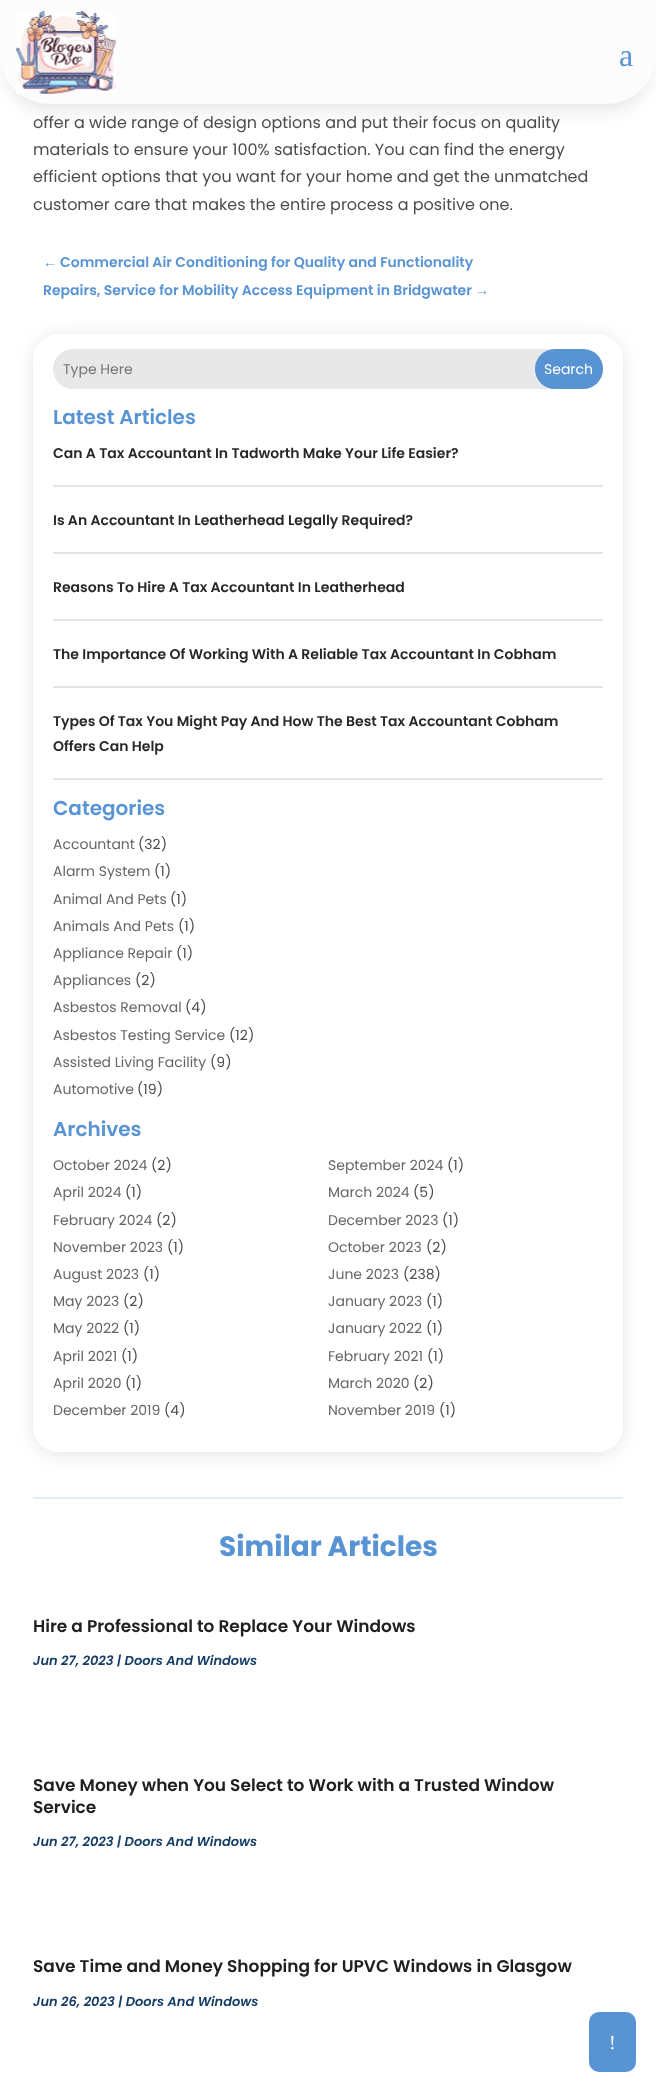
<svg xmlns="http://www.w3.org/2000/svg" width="656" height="2092">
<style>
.a{font:32px Liberation Serif;fill:#5893d4}
.b{font:16px Poppins;fill:#4c4c4c}
.c{font:bold 14px Liberation Sans;fill:#5893d4}
.d{font:600 14px Poppins;fill:#5893d4}
.e{font:14px Poppins;fill:#757575}
.f{font:14px Poppins;fill:#fff}
.g{font:600 20px Poppins;fill:#5893d4}
.h{font:600 14px Poppins;fill:#282828}
.i{font:14px Poppins;fill:#666}
.j{font:14px Poppins;fill:#4c4c4c}
.k{font:bold 28px Poppins;fill:#5893d4}
.l{font:600 17px Poppins;fill:#202020}
.m{font:italic 600 13px Poppins;fill:#153d66}
.n{font:20px Liberation Serif;fill:#fff}
</style>
<rect width="100%" height="100%" fill="#fff"/>
<rect fill="#0000001a" filter="blur(9px)" x="6" y="18" width="644" height="92" rx="44"/>
<path fill="#fcfcfc" d="M0 0h656v54c0 27.5-22.5 50-50 50h-556c-27.5 0-50-22.5-50-50z"/>
<image href="1.png" x="16" y="11" width="100" height="83"/>
<rect fill="#0000001a" filter="blur(9px)" x="33" y="336" width="590" height="1118" rx="25"/>
<rect fill="#fff" x="33" y="334" width="590" height="1118" rx="25"/>
<rect fill="#e8e8e8" x="53" y="349" width="550" height="40" rx="20"/>
<rect fill="#5893d4" x="535" y="349" width="68" height="40" rx="20"/>
<path fill="#e5e5e5" d="M53 485h550v2H53z"/>
<path fill="#e5e5e5" d="M53 552h550v2H53z"/>
<path fill="#e5e5e5" d="M53 619h550v2H53z"/>
<path fill="#e5e5e5" d="M53 686h550v2H53z"/>
<path fill="#e5e5e5" d="M53 778h550v2H53z"/>
<path fill="#e5ebff" d="M33 1497h590v2H33z"/>
<rect fill="#5893d4" x="589" y="2012" width="47" height="60" rx="10"/>
<text class="a" x="619" y="66">a</text>
<text class="b" x="33" y="128">offer a wide range of design options and put their focus on quality</text>
<text class="b" x="33" y="155">materials to ensure your 100% satisfaction. You can find the energy</text>
<text class="b" x="33" y="182">efficient options that you want for your home and get the unmatched</text>
<text class="b" x="33" y="210">customer care that makes the entire process a positive one.</text>
<text class="c" x="43" y="267">←</text>
<text class="d" x="60" y="267">Commercial Air Conditioning for Quality and Functionality</text>
<text class="d" x="43" y="295">Repairs, Service for Mobility Access Equipment in Bridgwater</text>
<text class="c" x="475" y="295">→</text>
<text class="e" x="63" y="374">Type Here</text>
<text class="f" x="544" y="374">Search</text>
<text class="g" x="53" y="424">Latest Articles</text>
<text class="h" x="53" y="458">Can A Tax Accountant In Tadworth Make Your Life Easier?</text>
<text class="h" x="53" y="525">Is An Accountant In Leatherhead Legally Required?</text>
<text class="h" x="53" y="592">Reasons To Hire A Tax Accountant In Leatherhead</text>
<text class="h" x="53" y="659">The Importance Of Working With A Reliable Tax Accountant In Cobham</text>
<text class="h" x="53" y="726">Types Of Tax You Might Pay And How The Best Tax Accountant Cobham</text>
<text class="h" x="53" y="751">Offers Can Help</text>
<text class="g" x="53" y="815">Categories</text>
<text class="i" x="53" y="849">Accountant</text>
<text class="j" x="138" y="849">(32)</text>
<text class="i" x="53" y="876">Alarm System</text>
<text class="j" x="154" y="876">(1)</text>
<text class="i" x="53" y="904">Animal And Pets</text>
<text class="j" x="170" y="904">(1)</text>
<text class="i" x="53" y="931">Animals And Pets</text>
<text class="j" x="178" y="931">(1)</text>
<text class="i" x="53" y="958">Appliance Repair</text>
<text class="j" x="176" y="958">(1)</text>
<text class="i" x="53" y="985">Appliances</text>
<text class="j" x="135" y="985">(2)</text>
<text class="i" x="53" y="1012">Asbestos Removal</text>
<text class="j" x="185" y="1012">(4)</text>
<text class="i" x="53" y="1040">Asbestos Testing Service</text>
<text class="j" x="229" y="1040">(12)</text>
<text class="i" x="53" y="1067">Assisted Living Facility</text>
<text class="j" x="210" y="1067">(9)</text>
<text class="i" x="53" y="1094">Automotive</text>
<text class="j" x="137" y="1094">(19)</text>
<text class="g" x="53" y="1136">Archives</text>
<text class="i" x="53" y="1170">October 2024</text>
<text class="j" x="151" y="1170">(2)</text>
<text class="i" x="328" y="1170">September 2024</text>
<text class="j" x="447" y="1170">(1)</text>
<text class="i" x="53" y="1197">April 2024</text>
<text class="j" x="125" y="1197">(1)</text>
<text class="i" x="328" y="1197">March 2024</text>
<text class="j" x="413" y="1197">(5)</text>
<text class="i" x="53" y="1225">February 2024</text>
<text class="j" x="156" y="1225">(2)</text>
<text class="i" x="328" y="1225">December 2023</text>
<text class="j" x="442" y="1225">(1)</text>
<text class="i" x="53" y="1252">November 2023</text>
<text class="j" x="167" y="1252">(1)</text>
<text class="i" x="328" y="1252">October 2023</text>
<text class="j" x="426" y="1252">(2)</text>
<text class="i" x="53" y="1279">August 2023</text>
<text class="j" x="143" y="1279">(1)</text>
<text class="i" x="328" y="1279">June 2023</text>
<text class="j" x="403" y="1279">(238)</text>
<text class="i" x="53" y="1306">May 2023</text>
<text class="j" x="123" y="1306">(2)</text>
<text class="i" x="328" y="1306">January 2023</text>
<text class="j" x="426" y="1306">(1)</text>
<text class="i" x="53" y="1333">May 2022</text>
<text class="j" x="123" y="1333">(1)</text>
<text class="i" x="328" y="1333">January 2022</text>
<text class="j" x="426" y="1333">(1)</text>
<text class="i" x="53" y="1361">April 2021</text>
<text class="j" x="121" y="1361">(1)</text>
<text class="i" x="328" y="1361">February 2021</text>
<text class="j" x="427" y="1361">(1)</text>
<text class="i" x="53" y="1388">April 2020</text>
<text class="j" x="125" y="1388">(1)</text>
<text class="i" x="328" y="1388">March 2020</text>
<text class="j" x="413" y="1388">(2)</text>
<text class="i" x="53" y="1415">December 2019</text>
<text class="j" x="164" y="1415">(4)</text>
<text class="i" x="328" y="1415">November 2019</text>
<text class="j" x="439" y="1415">(1)</text>
<text class="k" x="219" y="1556">Similar Articles</text>
<text class="l" x="33" y="1632">Hire a Professional to Replace Your Windows</text>
<text class="m" x="33" y="1665">Jun 27, 2023 | Doors And Windows</text>
<text class="l" x="33" y="1791">Save Money when You Select to Work with a Trusted Window</text>
<text class="l" x="33" y="1813">Service</text>
<text class="m" x="33" y="1846">Jun 27, 2023 | Doors And Windows</text>
<text class="l" x="33" y="1972">Save Time and Money Shopping for UPVC Windows in Glasgow</text>
<text class="m" x="33" y="2006">Jun 26, 2023 | Doors And Windows</text>
<text class="n" x="609" y="2049">!</text>
</svg>
